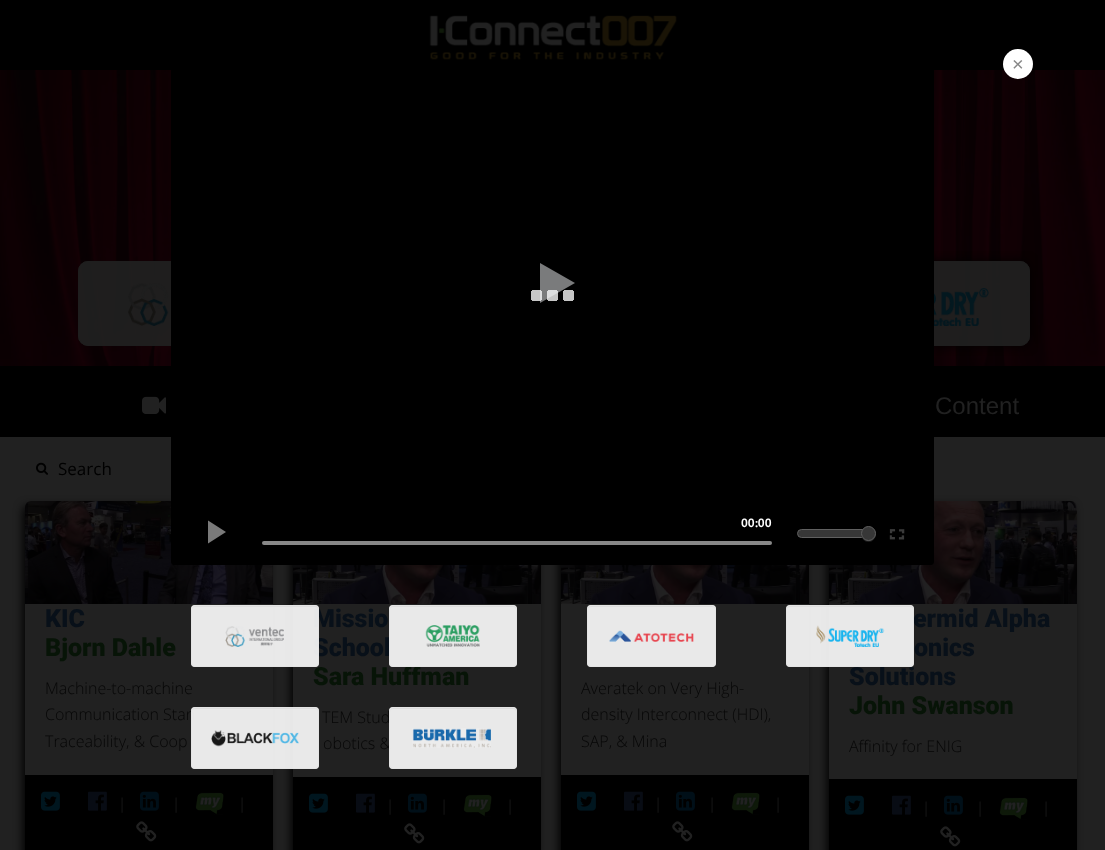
<svg xmlns="http://www.w3.org/2000/svg" width="1105" height="850">
<style>
.a{font:20px Liberation Sans;fill:#888}
.b{font:bold 12px PT Sans;fill:#fff}
.c{font:24px Liberation Sans;fill:#212121}
.d{font:17px Open Sans;fill:#000}
.e{font:900 25px Roboto;fill:#081019}
.f{font:900 25px Roboto;fill:#071407}
.g{font:300 16px Open Sans;fill:#070707}
.h{font:300 15px Open Sans;fill:#212121}
</style>
<defs>
<clipPath id="clip1"><path d="M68 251h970v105H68z"/></clipPath>
<clipPath id="clip2"><path d="M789 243h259v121h-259zm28 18h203c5.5 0 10 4.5 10 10v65c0 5.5-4.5 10-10 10h-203c-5.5 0-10-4.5-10-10v-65c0-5.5 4.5-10 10-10z" clip-rule="evenodd"/></clipPath>
<clipPath id="clip3"><path d="M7 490h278v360h-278zm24 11h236c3.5 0 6 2.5 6 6v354c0 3.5-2.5 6-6 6h-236c-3.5 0-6-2.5-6-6v-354c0-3.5 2.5-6 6-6z" clip-rule="evenodd"/></clipPath>
<clipPath id="clip4"><path d="M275 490h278v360h-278zm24 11h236c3.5 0 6 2.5 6 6v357c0 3.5-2.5 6-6 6h-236c-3.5 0-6-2.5-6-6v-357c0-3.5 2.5-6 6-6z" clip-rule="evenodd"/></clipPath>
<clipPath id="clip5"><path d="M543 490h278v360h-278zm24 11h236c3.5 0 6 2.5 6 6v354c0 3.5-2.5 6-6 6h-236c-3.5 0-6-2.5-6-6v-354c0-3.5 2.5-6 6-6z" clip-rule="evenodd"/></clipPath>
<clipPath id="clip6"><path d="M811 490h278v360h-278zm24 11h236c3.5 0 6 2.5 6 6v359c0 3.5-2.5 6-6 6h-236c-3.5 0-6-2.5-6-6v-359c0-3.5 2.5-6 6-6z" clip-rule="evenodd"/></clipPath>
</defs>
<rect width="100%" height="100%" fill="#212121"/>
<path fill="#000" d="M0 0h1105v70H0z"/>
<image href="10.png" x="0" y="70" width="1105" height="296"/>
<circle fill="#fff" cx="1018" cy="64" r="15"/>
<rect fill="#212121e6" x="78" y="261" width="223" height="85" rx="10"/>
<rect fill="none" stroke="#1e1e1ee6" x="78.5" y="261.5" width="222" height="84" rx="9.5"/>
<g clip-path="url(#clip1)">
<g clip-path="url(#clip2)">
<rect fill="#000000e6" filter="blur(5.5px)" x="807" y="261" width="223" height="85" rx="10"/>
</g>
</g>
<rect fill="#212121e6" x="807" y="261" width="223" height="85" rx="10"/>
<rect fill="none" stroke="#1e1e1ee6" x="807.5" y="261.5" width="222" height="84" rx="9.5"/>
<path fill="#000" d="M0 366h1105v71H0z"/>
<g clip-path="url(#clip3)">
<rect fill="#000" filter="blur(5px)" x="23" y="506" width="246" height="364" rx="5"/>
</g>
<g clip-path="url(#clip4)">
<rect fill="#000" filter="blur(5px)" x="291" y="506" width="246" height="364" rx="5"/>
</g>
<g clip-path="url(#clip5)">
<rect fill="#000" filter="blur(5px)" x="559" y="506" width="246" height="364" rx="5"/>
</g>
<g clip-path="url(#clip6)">
<rect fill="#000" filter="blur(5px)" x="827" y="506" width="246" height="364" rx="5"/>
</g>
<path fill="#000" d="M174 68h757c1.5 0 3 1.5 3 3v426h-763v-426c0-1.5 1.5-3 3-3z"/>
<image href="1.png" x="531" y="290" width="43" height="11"/>
<path fill="#f3f5f780" d="M540 303v-40l35 20z"/>
<image href="15.png" x="25" y="501" width="248" height="103"/>
<image href="22.png" x="829" y="501" width="248" height="103"/>
<path fill="#000" d="M171 497h763v65c0 1.5-1.5 3-3 3h-757c-1.5 0-3-1.5-3-3z"/>
<path fill="#7a7a7a" d="M208 520.5v23l18-11.5z"/>
<rect fill="#888" x="262" y="541" width="510" height="4" rx="2"/>
<rect fill="#373737" stroke="#606060" x="797.5" y="529.5" width="71" height="8" rx="4"/>
<rect fill="#1e1e1e" filter="blur(0.5px)" x="861" y="527" width="15" height="15" rx="7.5"/>
<circle fill="#373737" stroke="#606060" cx="868.5" cy="533.5" r="7"/>
<image href="2.png" x="889" y="529" width="16" height="11"/>
<rect fill="#ffffffe6" x="587" y="605" width="129" height="62" rx="4"/>
<path fill="#ddd" d="M591 607h121c2 0 3 1 3 3v-1c0-2-1-3-3-3h-121c-2 0-3 1-3 3v1c0-2 1-3 3-3z"/>
<rect fill="none" stroke="#e3e3e3e6" x="587.5" y="605.5" width="128" height="61" rx="3.5"/>
<image href="5.png" x="609" y="630" width="85" height="12"/>
<image href="9.png" x="429" y="15" width="248" height="45"/>
<image href="11.png" x="128" y="283" width="41" height="43"/>
<image href="12.png" x="934" y="288" width="55" height="38"/>
<image href="13.png" x="142" y="396" width="24" height="18"/>
<image href="14.png" x="36" y="462" width="12" height="13"/>
<path fill="#000" d="M25 775h248v75H25z"/>
<image href="16.png" x="41" y="791" width="19" height="20"/>
<image href="17.png" x="88" y="791" width="19" height="20"/>
<image href="18.png" x="140" y="791" width="19" height="20"/>
<image href="19.png" x="195" y="792" width="29" height="23"/>
<image href="20.png" x="136" y="821" width="21" height="21"/>
<image href="21.png" x="293" y="565" width="248" height="39"/>
<path fill="#000" d="M293 777h248v73H293z"/>
<image href="16.png" x="309" y="793" width="19" height="20"/>
<image href="17.png" x="356" y="793" width="19" height="20"/>
<image href="18.png" x="408" y="793" width="19" height="20"/>
<image href="19.png" x="463" y="794" width="29" height="23"/>
<image href="20.png" x="404" y="823" width="21" height="21"/>
<image href="21.png" x="561" y="565" width="248" height="39"/>
<path fill="#000" d="M561 775h248v75H561z"/>
<image href="16.png" x="577" y="791" width="19" height="20"/>
<image href="17.png" x="624" y="791" width="19" height="20"/>
<image href="18.png" x="676" y="791" width="19" height="20"/>
<image href="19.png" x="731" y="792" width="29" height="23"/>
<image href="20.png" x="672" y="821" width="21" height="21"/>
<path fill="#000" d="M829 779h248v71H829z"/>
<image href="16.png" x="845" y="795" width="19" height="20"/>
<image href="17.png" x="892" y="795" width="19" height="20"/>
<image href="18.png" x="944" y="795" width="19" height="20"/>
<image href="19.png" x="999" y="797" width="29" height="23"/>
<image href="20.png" x="940" y="826" width="21" height="21"/>
<text class="a" x="1012" y="71">×</text>
<text class="b" x="741" y="527">00:00</text>
<text class="c" x="935" y="414">Content</text>
<text class="d" x="58" y="475">Search</text>
<text class="e" x="45" y="627">KIC</text>
<text class="f" x="45" y="656">Bjorn Dahle</text>
<text class="g" x="45" y="694">Machine-to-machine</text>
<text class="g" x="45" y="720">Communication Stan</text>
<rect fill="#ffffffe6" x="191" y="707" width="128" height="62" rx="4"/>
<path fill="#dedede" d="M195 709h120c2 0 3 1 3 3c0-2 0-4-2-4h-121c-2 0-3 2-3 4c0-2 1-3 3-3z"/>
<rect fill="none" stroke="#e3e3e3e6" x="191.5" y="707.5" width="127" height="61" rx="3.5"/>
<image href="7.png" x="211" y="730" width="88" height="17"/>
<text class="g" x="45" y="747">Traceability, &amp; Coop</text>
<text class="h" x="118" y="809">|</text>
<text class="h" x="172" y="809">|</text>
<text class="h" x="238" y="809">|</text>
<text class="e" x="313" y="627">Missio</text>
<text class="e" x="313" y="656">School</text>
<text class="f" x="313" y="685">Sara Huffman</text>
<rect fill="#ffffffe6" x="389" y="605" width="128" height="62" rx="4"/>
<path fill="#ddd" d="M393 607h120c2 0 3 1 3 3c0-2 0-4-2-4h-121c-2 0-3 2-3 4c0-2 1-3 3-3z"/>
<rect fill="none" stroke="#e3e3e3e6" x="389.5" y="605.5" width="127" height="61" rx="3.5"/>
<image href="4.png" x="425" y="625" width="55" height="22"/>
<rect fill="#ffffffe6" x="191" y="605" width="128" height="62" rx="4"/>
<path fill="#dedede" d="M195 607h120c2 0 3 1 3 3c0-2 0-4-2-4h-121c-2 0-3 2-3 4c0-2 1-3 3-3z"/>
<rect fill="none" stroke="#e3e3e3e6" x="191.5" y="605.5" width="127" height="61" rx="3.5"/>
<image href="3.png" x="225" y="626" width="59" height="21"/>
<text class="g" x="322" y="723">TEM Stud</text>
<text class="g" x="323" y="749">obotics &amp;</text>
<rect fill="#ffffffe6" x="389" y="707" width="128" height="62" rx="4"/>
<path fill="#ddd" d="M393 709h120c2 0 3 1 3 3c0-2 0-4-2-4h-121c-2 0-3 2-3 4c0-2 1-3 3-3z"/>
<rect fill="none" stroke="#e3e3e3e6" x="389.5" y="707.5" width="127" height="61" rx="3.5"/>
<image href="8.png" x="412" y="728" width="79" height="20"/>
<text class="h" x="386" y="811">|</text>
<text class="h" x="440" y="811">|</text>
<text class="h" x="506" y="811">|</text>
<text class="g" x="581" y="694">Averatek on Very High-</text>
<text class="g" x="581" y="720">density Interconnect (HDI),</text>
<text class="g" x="581" y="747">SAP, &amp; Mina</text>
<text class="h" x="654" y="809">|</text>
<text class="h" x="708" y="809">|</text>
<text class="h" x="774" y="809">|</text>
<text class="e" x="913" y="627">ermid Alpha</text>
<text class="e" x="914" y="656">onics</text>
<text class="e" x="849" y="685">Solutions</text>
<rect fill="#ffffffe6" x="786" y="605" width="128" height="62" rx="4"/>
<path fill="#dedede" d="M790 607h120c2 0 3 1 3 3c0-2 0-4-2-4h-121c-2 0-3 2-3 4c0-2 1-3 3-3z"/>
<rect fill="none" stroke="#e3e3e3e6" x="786.5" y="605.5" width="127" height="61" rx="3.5"/>
<image href="6.png" x="816" y="625" width="69" height="22"/>
<text class="f" x="849" y="714">John Swanson</text>
<text class="g" x="849" y="752">Affinity for ENIG</text>
<text class="h" x="922" y="813">|</text>
<text class="h" x="976" y="813">|</text>
<text class="h" x="1042" y="813">|</text>
</svg>
